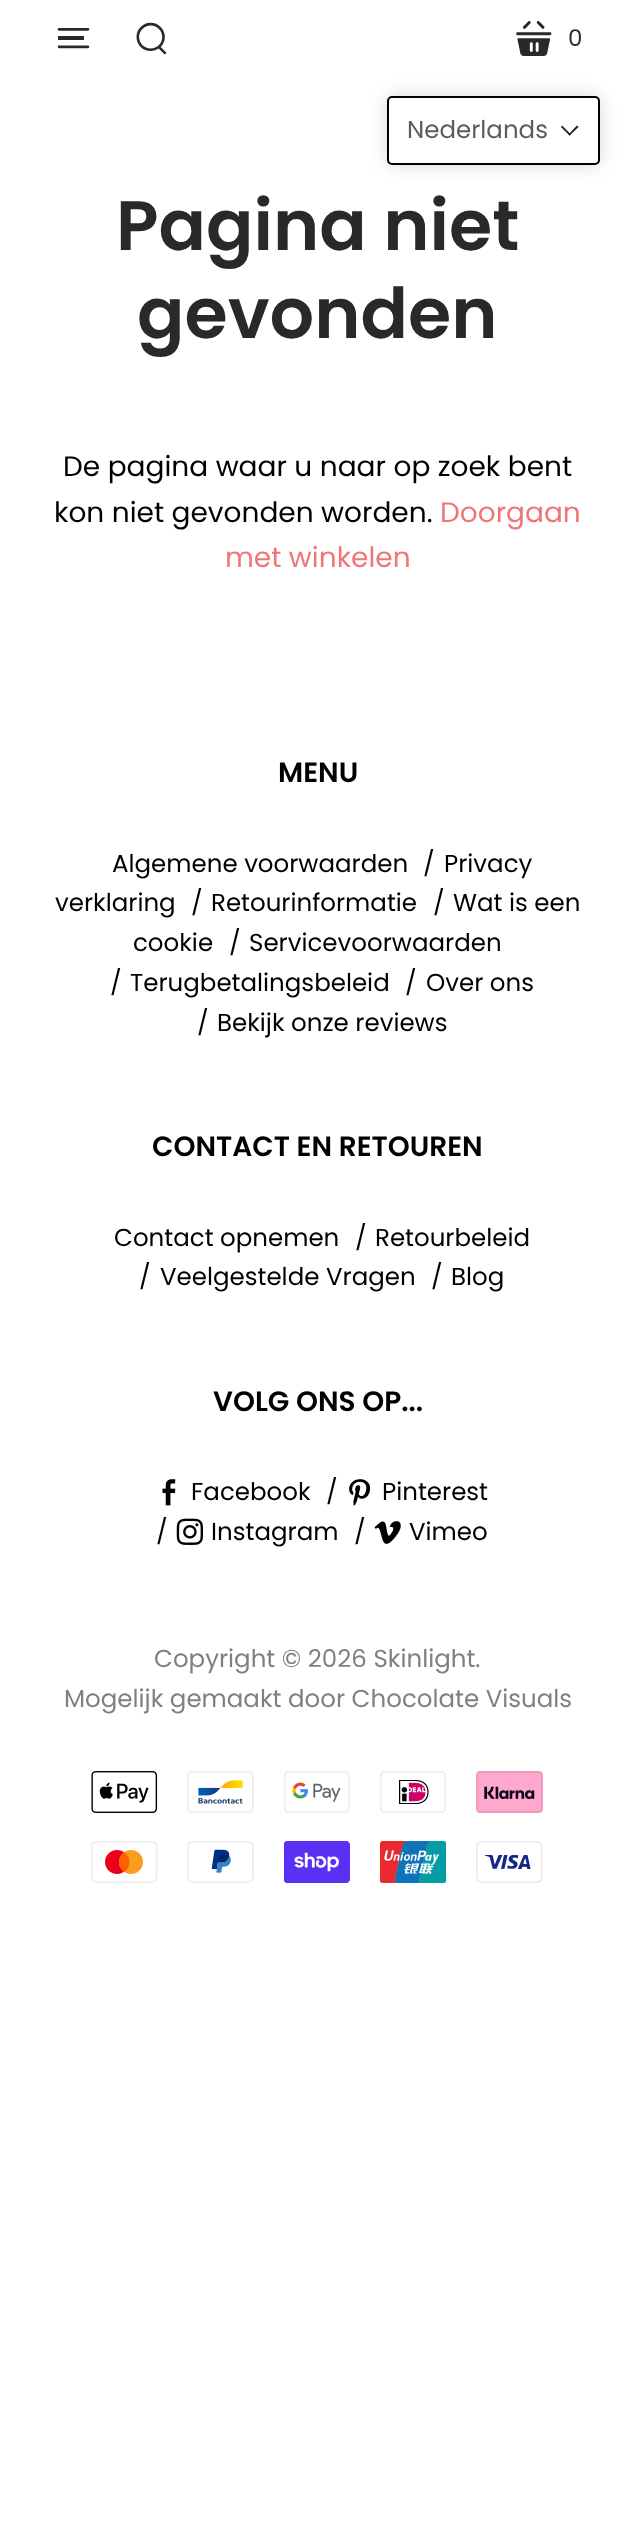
<svg xmlns="http://www.w3.org/2000/svg" width="634" height="2529">
<style>
.a{font:23px Poppins;fill:#292929}
.b{font:24.5px Poppins;fill:#5c5c5c}
.c{font:600 70px Poppins;fill:#292929}
.d{font:28px Poppins;fill:#000}
.e{font:28px Poppins;fill:#f07575}
.f{font:600 28px Poppins;fill:#000}
.g{font:24.5px Poppins;fill:#000}
.h{font:24.5px Poppins;fill:#808080}
</style>
<rect width="100%" height="100%" fill="#fff"/>
<image href="1.png" x="57" y="28" width="33" height="21"/>
<path fill="#292929" d="M58 36h26v4H58z"/>
<image href="2.png" x="136" y="22" width="31" height="33"/>
<image href="3.png" x="516" y="21" width="36" height="35"/>
<rect fill="#00000026" filter="blur(9px)" x="387" y="96" width="213" height="69" rx="5"/>
<rect fill="#fff" stroke="#000" stroke-width="2" x="388" y="97" width="211" height="67" rx="4"/>
<path fill="#1a1a1a" d="M577 125.5l1.5 1.5l-9 8.5l-1-1z"/>
<path fill="#1a1a1a" d="M562 125.5l9 9l-1.5 1l-8.5-8.5z"/>
<image href="4.png" x="162" y="1479" width="14" height="27"/>
<image href="5.png" x="349" y="1479" width="22" height="27"/>
<image href="6.png" x="176" y="1518" width="27" height="27"/>
<image href="7.png" x="374" y="1521" width="27" height="23"/>
<image href="8.png" x="91" y="1771" width="67" height="42"/>
<image href="9.png" x="187" y="1771" width="67" height="42"/>
<image href="10.png" x="284" y="1771" width="66" height="42"/>
<image href="11.png" x="380" y="1771" width="66" height="42"/>
<image href="12.png" x="476" y="1771" width="67" height="42"/>
<image href="13.png" x="91" y="1841" width="67" height="42"/>
<image href="14.png" x="187" y="1841" width="67" height="42"/>
<image href="15.png" x="284" y="1841" width="66" height="42"/>
<image href="16.png" x="380" y="1841" width="66" height="42"/>
<image href="17.png" x="476" y="1841" width="67" height="42"/>
<text class="a" x="568" y="46">0</text>
<text class="b" x="407" y="138">Nederlands</text>
<text class="c" x="116" y="250">Pagina niet</text>
<text class="c" x="137" y="338">gevonden</text>
<text class="d" x="63" y="476">De pagina waar u naar op zoek bent</text>
<text class="d" x="54" y="522">kon niet gevonden worden.</text>
<text class="e" x="440" y="522">Doorgaan</text>
<text class="e" x="225" y="567">met winkelen</text>
<text class="f" x="278" y="782">MENU</text>
<text class="g" x="112" y="872">Algemene voorwaarden</text>
<text class="g" x="423" y="872">/</text>
<text class="g" x="444" y="872">Privacy</text>
<text class="g" x="55" y="911">verklaring</text>
<text class="g" x="191" y="911">/</text>
<text class="g" x="211" y="911">Retourinformatie</text>
<text class="g" x="433" y="911">/</text>
<text class="g" x="453" y="911">Wat is een</text>
<text class="g" x="133" y="951">cookie</text>
<text class="g" x="229" y="951">/</text>
<text class="g" x="249" y="951">Servicevoorwaarden</text>
<text class="g" x="110" y="991">/</text>
<text class="g" x="130" y="991">Terugbetalingsbeleid</text>
<text class="g" x="405" y="991">/</text>
<text class="g" x="426" y="991">Over ons</text>
<text class="g" x="197" y="1031">/</text>
<text class="g" x="217" y="1031">Bekijk onze reviews</text>
<text class="f" x="152" y="1156">CONTACT EN RETOUREN</text>
<text class="g" x="114" y="1246">Contact opnemen</text>
<text class="g" x="355" y="1246">/</text>
<text class="g" x="375" y="1246">Retourbeleid</text>
<text class="g" x="139" y="1285">/</text>
<text class="g" x="160" y="1285">Veelgestelde Vragen</text>
<text class="g" x="431" y="1285">/</text>
<text class="g" x="451" y="1285">Blog</text>
<text class="f" x="213" y="1411">VOLG ONS OP...</text>
<text class="g" x="191" y="1500">Facebook</text>
<text class="g" x="326" y="1500">/</text>
<text class="g" x="382" y="1500">Pinterest</text>
<text class="g" x="156" y="1540">/</text>
<text class="g" x="211" y="1540">Instagram</text>
<text class="g" x="354" y="1540">/</text>
<text class="g" x="409" y="1540">Vimeo</text>
<text class="h" x="154" y="1667">Copyright © 2026 Skinlight.</text>
<text class="h" x="64" y="1707">Mogelijk gemaakt door Chocolate Visuals</text>
</svg>
